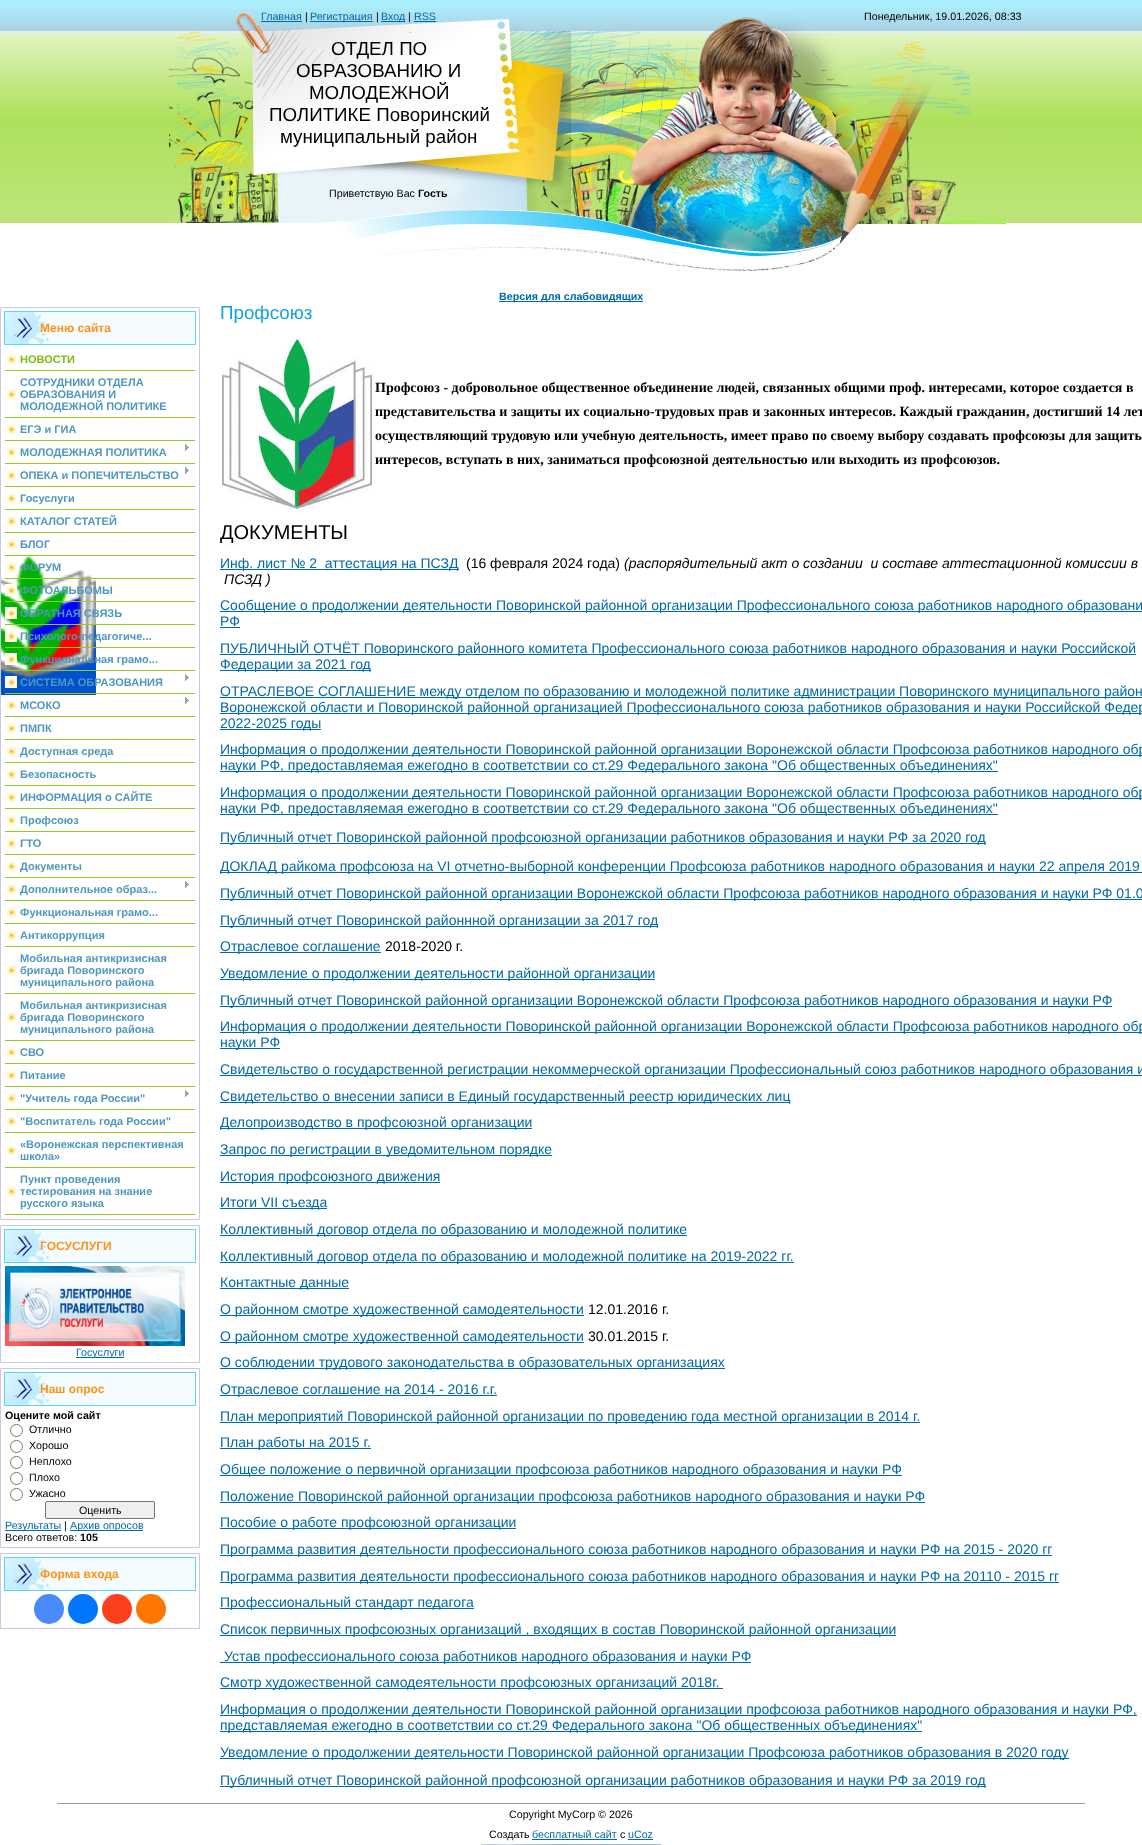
<svg xmlns="http://www.w3.org/2000/svg" width="1142" height="1845">
<style>
.a{font:10.7px Liberation Sans;fill:#0069a9}
.b{font:10.7px Liberation Sans;fill:#000}
.c{font:18.75px Liberation Sans;fill:#000}
.d{font:bold 10.7px Liberation Sans;fill:#000}
.e{font:bold 10.7px Liberation Sans;fill:#0069a9}
.f{font:bold 12px Liberation Sans;fill:#ff9115}
.g{font:bold 11px Liberation Sans;fill:#79bd11}
.h{font:bold 11px Liberation Sans;fill:#4f98bc}
.i{font:18.75px Liberation Sans;fill:#12a4d8}
.j{font:bold 14px Liberation Serif;fill:#000}
.k{font:20px Liberation Sans;fill:#000}
.l{font:14px Liberation Sans;fill:#0069a9}
.m{font:14px Liberation Sans;fill:#000}
.n{font:italic 14px Liberation Sans;fill:#000}
</style>
<rect width="100%" height="100%" fill="#fff"/>
<image href="1.png" x="0" y="0" width="1142" height="223"/>
<image href="2.png" x="168" y="8" width="838" height="263"/>
<path fill="#0069a9" d="M261 21h41v1H261z"/>
<path fill="#0069a9" d="M310 21h63v1H310z"/>
<path fill="#0069a9" d="M381 21h24v1H381z"/>
<path fill="#0069a9" d="M414 21h22v1H414z"/>
<path fill="#0069a9" d="M499 301h144v1H499z"/>
<image href="9.png" x="1" y="556" width="95" height="139"/>
<path fill="none" stroke="#cacae6" d="M0.5 307.5h199v912H0.5z"/>
<path fill="#f5fcff" d="M49 312h146v32H49z"/>
<image href="3.png" x="5" y="312" width="44" height="32"/>
<path fill="none" stroke="#5bd1fc" d="M4.5 311.5h191v33H4.5z"/>
<image href="4.png" x="5" y="353" width="11" height="12"/>
<path fill="#97c821" d="M5 370h190v1H5z"/>
<image href="4.png" x="5" y="388" width="11" height="12"/>
<path fill="#97c821" d="M5 417h190v1H5z"/>
<image href="4.png" x="5" y="423" width="11" height="12"/>
<path fill="#97c821" d="M5 440h190v1H5z"/>
<image href="4.png" x="5" y="446" width="11" height="12"/>
<path fill="#97c821" d="M5 463h190v1H5z"/>
<image href="5.png" x="185" y="444" width="4" height="7"/>
<image href="4.png" x="5" y="469" width="11" height="12"/>
<path fill="#97c821" d="M5 486h190v1H5z"/>
<image href="5.png" x="185" y="467" width="4" height="7"/>
<image href="4.png" x="5" y="492" width="11" height="12"/>
<path fill="#97c821" d="M5 509h190v1H5z"/>
<image href="4.png" x="5" y="515" width="11" height="12"/>
<path fill="#97c821" d="M5 532h190v1H5z"/>
<image href="4.png" x="5" y="538" width="11" height="12"/>
<path fill="#97c821" d="M5 555h190v1H5z"/>
<image href="4.png" x="5" y="561" width="11" height="12"/>
<path fill="#97c821" d="M5 578h190v1H5z"/>
<image href="6.png" x="5" y="584" width="12" height="12"/>
<path fill="#97c821" d="M5 601h190v1H5z"/>
<image href="6.png" x="5" y="607" width="12" height="12"/>
<path fill="#97c821" d="M5 624h190v1H5z"/>
<image href="6.png" x="5" y="630" width="12" height="12"/>
<path fill="#97c821" d="M5 647h190v1H5z"/>
<image href="6.png" x="5" y="653" width="12" height="12"/>
<path fill="#97c821" d="M5 670h190v1H5z"/>
<image href="6.png" x="5" y="676" width="12" height="12"/>
<path fill="#97c821" d="M5 693h190v1H5z"/>
<image href="5.png" x="185" y="674" width="4" height="7"/>
<image href="4.png" x="5" y="699" width="11" height="12"/>
<path fill="#97c821" d="M5 716h190v1H5z"/>
<image href="5.png" x="185" y="697" width="4" height="7"/>
<image href="4.png" x="5" y="722" width="11" height="12"/>
<path fill="#97c821" d="M5 739h190v1H5z"/>
<image href="4.png" x="5" y="745" width="11" height="12"/>
<path fill="#97c821" d="M5 762h190v1H5z"/>
<image href="4.png" x="5" y="768" width="11" height="12"/>
<path fill="#97c821" d="M5 785h190v1H5z"/>
<image href="4.png" x="5" y="791" width="11" height="12"/>
<path fill="#97c821" d="M5 808h190v1H5z"/>
<image href="4.png" x="5" y="814" width="11" height="12"/>
<path fill="#97c821" d="M5 831h190v1H5z"/>
<image href="4.png" x="5" y="837" width="11" height="12"/>
<path fill="#97c821" d="M5 854h190v1H5z"/>
<image href="4.png" x="5" y="860" width="11" height="12"/>
<path fill="#97c821" d="M5 877h190v1H5z"/>
<image href="4.png" x="5" y="883" width="11" height="12"/>
<path fill="#97c821" d="M5 900h190v1H5z"/>
<image href="5.png" x="185" y="881" width="4" height="7"/>
<image href="4.png" x="5" y="906" width="11" height="12"/>
<path fill="#97c821" d="M5 923h190v1H5z"/>
<image href="4.png" x="5" y="929" width="11" height="12"/>
<path fill="#97c821" d="M5 946h190v1H5z"/>
<image href="4.png" x="5" y="964" width="11" height="12"/>
<path fill="#97c821" d="M5 993h190v1H5z"/>
<image href="4.png" x="5" y="1011" width="11" height="12"/>
<path fill="#97c821" d="M5 1040h190v1H5z"/>
<image href="4.png" x="5" y="1046" width="11" height="12"/>
<path fill="#97c821" d="M5 1063h190v1H5z"/>
<image href="4.png" x="5" y="1069" width="11" height="12"/>
<path fill="#97c821" d="M5 1086h190v1H5z"/>
<image href="4.png" x="5" y="1092" width="11" height="12"/>
<path fill="#97c821" d="M5 1109h190v1H5z"/>
<image href="5.png" x="185" y="1090" width="4" height="7"/>
<image href="4.png" x="5" y="1115" width="11" height="12"/>
<path fill="#97c821" d="M5 1132h190v1H5z"/>
<image href="4.png" x="5" y="1144" width="11" height="12"/>
<path fill="#97c821" d="M5 1167h190v1H5z"/>
<image href="4.png" x="5" y="1185" width="11" height="12"/>
<path fill="#97c821" d="M5 1214h190v1H5z"/>
<path fill="none" stroke="#cacae6" d="M0.5 1225.5h199v137H0.5z"/>
<path fill="#f5fcff" d="M49 1230h146v32H49z"/>
<image href="3.png" x="5" y="1230" width="44" height="32"/>
<path fill="none" stroke="#5bd1fc" d="M4.5 1229.5h191v33H4.5z"/>
<image href="7.png" x="5" y="1266" width="180" height="80"/>
<path fill="#0069a9" d="M76 1357h48v1H76z"/>
<path fill="none" stroke="#cacae6" d="M0.5 1368.5h199v179H0.5z"/>
<path fill="#f5fcff" d="M49 1373h146v32H49z"/>
<image href="3.png" x="5" y="1373" width="44" height="32"/>
<path fill="none" stroke="#5bd1fc" d="M4.5 1372.5h191v33H4.5z"/>
<circle fill="none" stroke="#767676" cx="16.5" cy="1430.5" r="6"/>
<circle fill="none" stroke="#767676" cx="16.5" cy="1446.5" r="6"/>
<circle fill="none" stroke="#767676" cx="16.5" cy="1462.5" r="6"/>
<circle fill="none" stroke="#767676" cx="16.5" cy="1478.5" r="6"/>
<circle fill="none" stroke="#767676" cx="16.5" cy="1494.5" r="6"/>
<rect fill="#efefef" stroke="#767676" x="45.5" y="1501.5" width="109" height="17" rx="1.5"/>
<path fill="#0069a9" d="M5 1530h56v1H5z"/>
<path fill="#0069a9" d="M70 1530h73v1H70z"/>
<path fill="none" stroke="#cacae6" d="M0.5 1553.5h199v75H0.5z"/>
<path fill="#f5fcff" d="M49 1558h146v32H49z"/>
<image href="3.png" x="5" y="1558" width="44" height="32"/>
<path fill="none" stroke="#5bd1fc" d="M4.5 1557.5h191v33H4.5z"/>
<circle fill="#498bfa" cx="49" cy="1609" r="15"/>
<circle fill="#07f" cx="83" cy="1609" r="15"/>
<circle fill="#fc3f1d" cx="117" cy="1609" r="15"/>
<circle fill="#f70" cx="151" cy="1609" r="15"/>
<image href="8.png" x="222" y="339" width="150" height="170"/>
<path fill="#0069a9" d="M220 569h239v1H220z"/>
<path fill="#0069a9" d="M220 611h922v1H220z"/>
<path fill="#0069a9" d="M220 627h20v1H220z"/>
<path fill="#0069a9" d="M220 654h916v1H220z"/>
<path fill="#0069a9" d="M220 670h151v1H220z"/>
<path fill="#0069a9" d="M220 697h922v1H220z"/>
<path fill="#0069a9" d="M220 713h922v1H220z"/>
<path fill="#0069a9" d="M220 729h101v1H220z"/>
<path fill="#0069a9" d="M220 755h922v1H220z"/>
<path fill="#0069a9" d="M220 771h778v1H220z"/>
<path fill="#0069a9" d="M220 798h922v1H220z"/>
<path fill="#0069a9" d="M220 814h778v1H220z"/>
<path fill="#0069a9" d="M220 843h766v1H220z"/>
<path fill="#0069a9" d="M220 872h922v1H220z"/>
<path fill="#0069a9" d="M220 899h922v1H220z"/>
<path fill="#0069a9" d="M220 926h438v1H220z"/>
<path fill="#0069a9" d="M220 952h161v1H220z"/>
<path fill="#0069a9" d="M220 979h435v1H220z"/>
<path fill="#0069a9" d="M220 1006h892v1H220z"/>
<path fill="#0069a9" d="M220 1032h922v1H220z"/>
<path fill="#0069a9" d="M220 1048h60v1H220z"/>
<path fill="#0069a9" d="M220 1075h922v1H220z"/>
<path fill="#0069a9" d="M220 1102h570v1H220z"/>
<path fill="#0069a9" d="M220 1128h312v1H220z"/>
<path fill="#0069a9" d="M220 1155h332v1H220z"/>
<path fill="#0069a9" d="M220 1182h220v1H220z"/>
<path fill="#0069a9" d="M220 1208h107v1H220z"/>
<path fill="#0069a9" d="M220 1235h467v1H220z"/>
<path fill="#0069a9" d="M220 1262h574v1H220z"/>
<path fill="#0069a9" d="M220 1288h129v1H220z"/>
<path fill="#0069a9" d="M220 1315h364v1H220z"/>
<path fill="#0069a9" d="M220 1342h364v1H220z"/>
<path fill="#0069a9" d="M220 1368h505v1H220z"/>
<path fill="#0069a9" d="M220 1395h277v1H220z"/>
<path fill="#0069a9" d="M220 1422h700v1H220z"/>
<path fill="#0069a9" d="M220 1448h151v1H220z"/>
<path fill="#0069a9" d="M220 1475h682v1H220z"/>
<path fill="#0069a9" d="M220 1502h705v1H220z"/>
<path fill="#0069a9" d="M220 1528h296v1H220z"/>
<path fill="#0069a9" d="M220 1555h832v1H220z"/>
<path fill="#0069a9" d="M220 1582h839v1H220z"/>
<path fill="#0069a9" d="M220 1608h254v1H220z"/>
<path fill="#0069a9" d="M220 1635h676v1H220z"/>
<path fill="#0069a9" d="M220 1662h531v1H220z"/>
<path fill="#0069a9" d="M220 1688h503v1H220z"/>
<path fill="#0069a9" d="M220 1715h917v1H220z"/>
<path fill="#0069a9" d="M220 1731h702v1H220z"/>
<path fill="#0069a9" d="M220 1758h849v1H220z"/>
<path fill="#0069a9" d="M220 1786h766v1H220z"/>
<path fill="#999" d="M57 1803h1028v1H57z"/>
<path fill="#0069a9" d="M532 1839h85v1H532z"/>
<path fill="#0069a9" d="M628 1839h25v1H628z"/>
<image href="10.png" x="481" y="1844" width="180" height="1"/>
<text class="a" x="261" y="20">Главная</text>
<text class="b" x="305" y="20">|</text>
<text class="a" x="310" y="20">Регистрация</text>
<text class="b" x="376" y="20">|</text>
<text class="a" x="381" y="20">Вход</text>
<text class="b" x="408" y="20">|</text>
<text class="a" x="414" y="20">RSS</text>
<text class="b" x="864" y="20">Понедельник, 19.01.2026, 08:33</text>
<text class="c" x="331" y="55">ОТДЕЛ ПО</text>
<text class="c" x="296" y="77">ОБРАЗОВАНИЮ И</text>
<text class="c" x="309" y="99">МОЛОДЕЖНОЙ</text>
<text class="c" x="269" y="121">ПОЛИТИКЕ Поворинский</text>
<text class="c" x="280" y="143">муниципальный район</text>
<text class="b" x="329" y="197">Приветствую Вас</text>
<text class="d" x="418" y="197">Гость</text>
<text class="e" x="499" y="300">Версия для слабовидящих</text>
<text class="f" x="40" y="332">Меню сайта</text>
<text class="g" x="20" y="363">НОВОСТИ</text>
<text class="h" x="20" y="386">СОТРУДНИКИ ОТДЕЛА</text>
<text class="h" x="20" y="398">ОБРАЗОВАНИЯ И</text>
<text class="h" x="20" y="410">МОЛОДЕЖНОЙ ПОЛИТИКЕ</text>
<text class="h" x="20" y="433">ЕГЭ и ГИА</text>
<text class="h" x="20" y="456">МОЛОДЕЖНАЯ ПОЛИТИКА</text>
<text class="h" x="20" y="479">ОПЕКА и ПОПЕЧИТЕЛЬСТВО</text>
<text class="h" x="20" y="502">Госуслуги</text>
<text class="h" x="20" y="525">КАТАЛОГ СТАТЕЙ</text>
<text class="h" x="20" y="548">БЛОГ</text>
<text class="h" x="20" y="571">ФОРУМ</text>
<text class="h" x="20" y="594">ФОТОАЛЬБОМЫ</text>
<text class="h" x="20" y="617">ОБРАТНАЯ СВЯЗЬ</text>
<text class="h" x="20" y="640">Психолого-педагогиче...</text>
<text class="h" x="20" y="663">Функциональная грамо...</text>
<text class="h" x="20" y="686">СИСТЕМА ОБРАЗОВАНИЯ</text>
<text class="h" x="20" y="709">МСОКО</text>
<text class="h" x="20" y="732">ПМПК</text>
<text class="h" x="20" y="755">Доступная среда</text>
<text class="h" x="20" y="778">Безопасность</text>
<text class="h" x="20" y="801">ИНФОРМАЦИЯ о САЙТЕ</text>
<text class="h" x="20" y="824">Профсоюз</text>
<text class="h" x="20" y="847">ГТО</text>
<text class="h" x="20" y="870">Документы</text>
<text class="h" x="20" y="893">Дополнительное образ...</text>
<text class="h" x="20" y="916">Функциональная грамо...</text>
<text class="h" x="20" y="939">Антикоррупция</text>
<text class="h" x="20" y="962">Мобильная антикризисная</text>
<text class="h" x="20" y="974">бригада Поворинского</text>
<text class="h" x="20" y="986">муниципального района</text>
<text class="h" x="20" y="1009">Мобильная антикризисная</text>
<text class="h" x="20" y="1021">бригада Поворинского</text>
<text class="h" x="20" y="1033">муниципального района</text>
<text class="h" x="20" y="1056">СВО</text>
<text class="h" x="20" y="1079">Питание</text>
<text class="h" x="20" y="1102">"Учитель года России"</text>
<text class="h" x="20" y="1125">"Воспитатель года России"</text>
<text class="h" x="20" y="1148">«Воронежская перспективная</text>
<text class="h" x="20" y="1160">школа»</text>
<text class="h" x="20" y="1183">Пункт проведения</text>
<text class="h" x="20" y="1195">тестирования на знание</text>
<text class="h" x="20" y="1207">русского языка</text>
<text class="f" x="40" y="1250">ГОСУСЛУГИ</text>
<text class="a" x="76" y="1356">Госуслуги</text>
<text class="f" x="40" y="1393">Наш опрос</text>
<text class="d" x="5" y="1419">Оцените мой сайт</text>
<text class="b" x="29" y="1433">Отлично</text>
<text class="b" x="29" y="1449">Хорошо</text>
<text class="b" x="29" y="1465">Неплохо</text>
<text class="b" x="29" y="1481">Плохо</text>
<text class="b" x="29" y="1497">Ужасно</text>
<text class="b" x="79" y="1514">Оценить</text>
<text class="a" x="5" y="1529">Результаты</text>
<text class="b" x="64" y="1529">|</text>
<text class="a" x="70" y="1529">Архив опросов</text>
<text class="b" x="5" y="1541">Всего ответов:</text>
<text class="d" x="80" y="1541">105</text>
<text class="f" x="40" y="1578">Форма входа</text>
<text class="i" x="220" y="319">Профсоюз</text>
<text class="j" x="375" y="392">Профсоюз - добровольное общественное объединение людей, связанных общими проф. интересами, которое создается в</text>
<text class="j" x="375" y="416">представительства и защиты их социально-трудовых прав и законных интересов. Каждый гражданин, достигший 14 лет</text>
<text class="j" x="375" y="440">осуществляющий трудовую или учебную деятельность, имеет право по своему выбору создавать профсоюзы для защиты</text>
<text class="j" x="375" y="464">интересов, вступать в них, заниматься профсоюзной деятельностью или выходить из профсоюзов.</text>
<text class="k" x="220" y="539">ДОКУМЕНТЫ</text>
<text class="l" xml:space="preserve" x="220" y="568">Инф. лист № 2  аттестация на ПСЗД</text>
<text class="m" x="466" y="568">(16 февраля 2024 года)</text>
<text class="n" xml:space="preserve" x="624" y="568">(распорядительный акт о создании  и составе аттестационной комиссии в</text>
<text class="n" x="224" y="584">ПСЗД )</text>
<text class="l" x="220" y="610">Сообщение о продолжении деятельности Поворинской районной организации Профессионального союза работников народного образовани</text>
<text class="l" x="220" y="626">РФ</text>
<text class="l" x="220" y="653">ПУБЛИЧНЫЙ ОТЧЁТ Поворинского районного комитета Профессионального союза работников народного образования и науки Российской</text>
<text class="l" x="220" y="669">Федерации за 2021 год</text>
<text class="l" x="220" y="696">ОТРАСЛЕВОЕ СОГЛАШЕНИЕ между отделом по образованию и молодежной политике администрации Поворинского муниципального район</text>
<text class="l" x="220" y="712">Воронежской области и Поворинской районной организацией Профессионального союза работников образования и науки Российской Федер</text>
<text class="l" x="220" y="728">2022-2025 годы</text>
<text class="l" x="220" y="754">Информация о продолжении деятельности Поворинской районной организации Воронежской области Профсоюза работников народного обр</text>
<text class="l" x="220" y="770">науки РФ, предоставляемая ежегодно в соответствии со ст.29 Федерального закона "Об общественных объединениях"</text>
<text class="l" x="220" y="797">Информация о продолжении деятельности Поворинской районной организации Воронежской области Профсоюза работников народного обр</text>
<text class="l" x="220" y="813">науки РФ, предоставляемая ежегодно в соответствии со ст.29 Федерального закона "Об общественных объединениях"</text>
<text class="l" x="220" y="842">Публичный отчет Поворинской районной профсоюзной организации работников образования и науки РФ за 2020 год</text>
<text class="l" x="220" y="871">ДОКЛАД райкома профсоюза на VI отчетно-выборной конференции Профсоюза работников народного образования и науки 22 апреля 2019</text>
<text class="l" x="220" y="898">Публичный отчет Поворинской районной организации Воронежской области Профсоюза работников народного образования и науки РФ 01.0</text>
<text class="l" x="220" y="925">Публичный отчет Поворинской районнной организации за 2017 год</text>
<text class="l" x="220" y="951">Отраслевое соглашение</text>
<text class="m" x="385" y="951">2018-2020 г.</text>
<text class="l" x="220" y="978">Уведомление о продолжении деятельности районной организации</text>
<text class="l" x="220" y="1005">Публичный отчет Поворинской районной организации Воронежской области Профсоюза работников народного образования и науки РФ</text>
<text class="l" x="220" y="1031">Информация о продолжении деятельности Поворинской районной организации Воронежской области Профсоюза работников народного обр</text>
<text class="l" x="220" y="1047">науки РФ</text>
<text class="l" x="220" y="1074">Свидетельство о государственной регистрации некоммерческой организации Профессиональный союз работников народного образования и</text>
<text class="l" x="220" y="1101">Свидетельство о внесении записи в Единый государственный реестр юридических лиц</text>
<text class="l" x="220" y="1127">Делопроизводство в профсоюзной организации</text>
<text class="l" x="220" y="1154">Запрос по регистрации в уведомительном порядке</text>
<text class="l" x="220" y="1181">История профсоюзного движения</text>
<text class="l" x="220" y="1207">Итоги VII съезда</text>
<text class="l" x="220" y="1234">Коллективный договор отдела по образованию и молодежной политике</text>
<text class="l" x="220" y="1261">Коллективный договор отдела по образованию и молодежной политике на 2019-2022 гг.</text>
<text class="l" x="220" y="1287">Контактные данные</text>
<text class="l" x="220" y="1314">О районном смотре художественной самодеятельности</text>
<text class="m" x="588" y="1314">12.01.2016 г.</text>
<text class="l" x="220" y="1341">О районном смотре художественной самодеятельности</text>
<text class="m" x="588" y="1341">30.01.2015 г.</text>
<text class="l" x="220" y="1367">О соблюдении трудового законодательства в образовательных организациях</text>
<text class="l" x="220" y="1394">Отраслевое соглашение на 2014 - 2016 г.г.</text>
<text class="l" x="220" y="1421">План мероприятий Поворинской районной организации по проведению года местной организации в 2014 г.</text>
<text class="l" x="220" y="1447">План работы на 2015 г.</text>
<text class="l" x="220" y="1474">Общее положение о первичной организации профсоюза работников народного образования и науки РФ</text>
<text class="l" x="220" y="1501">Положение Поворинской районной организации профсоюза работников народного образования и науки РФ</text>
<text class="l" x="220" y="1527">Пособие о работе профсоюзной организации</text>
<text class="l" x="220" y="1554">Программа развития деятельности профессионального союза работников народного образования и науки РФ на 2015 - 2020 гг</text>
<text class="l" x="220" y="1581">Программа развития деятельности профессионального союза работников народного образования и науки РФ на 20110 - 2015 гг</text>
<text class="l" x="220" y="1607">Профессиональный стандарт педагога</text>
<text class="l" x="220" y="1634">Список первичных профсоюзных организаций , входящих в состав Поворинской районной организации</text>
<text class="l" x="224" y="1661">Устав профессионального союза работников народного образования и науки РФ</text>
<text class="l" x="220" y="1687">Смотр художественной самодеятельности профсоюзных организаций 2018г.</text>
<text class="l" x="220" y="1714">Информация о продолжении деятельности Поворинской районной организации профсоюза работников народного образования и науки РФ,</text>
<text class="l" x="220" y="1730">представляемая ежегодно в соответствии со ст.29 Федерального закона "Об общественных объединениях"</text>
<text class="l" x="220" y="1757">Уведомление о продолжении деятельности Поворинской районной организации Профсоюза работников образования в 2020 году</text>
<text class="l" x="220" y="1785">Публичный отчет Поворинской районной профсоюзной организации работников образования и науки РФ за 2019 год</text>
<text class="b" x="509" y="1818">Copyright MyCorp © 2026</text>
<text class="b" x="489" y="1838">Создать</text>
<text class="a" x="532" y="1838">бесплатный сайт</text>
<text class="b" x="620" y="1838">с</text>
<text class="a" x="628" y="1838">uCoz</text>
</svg>
